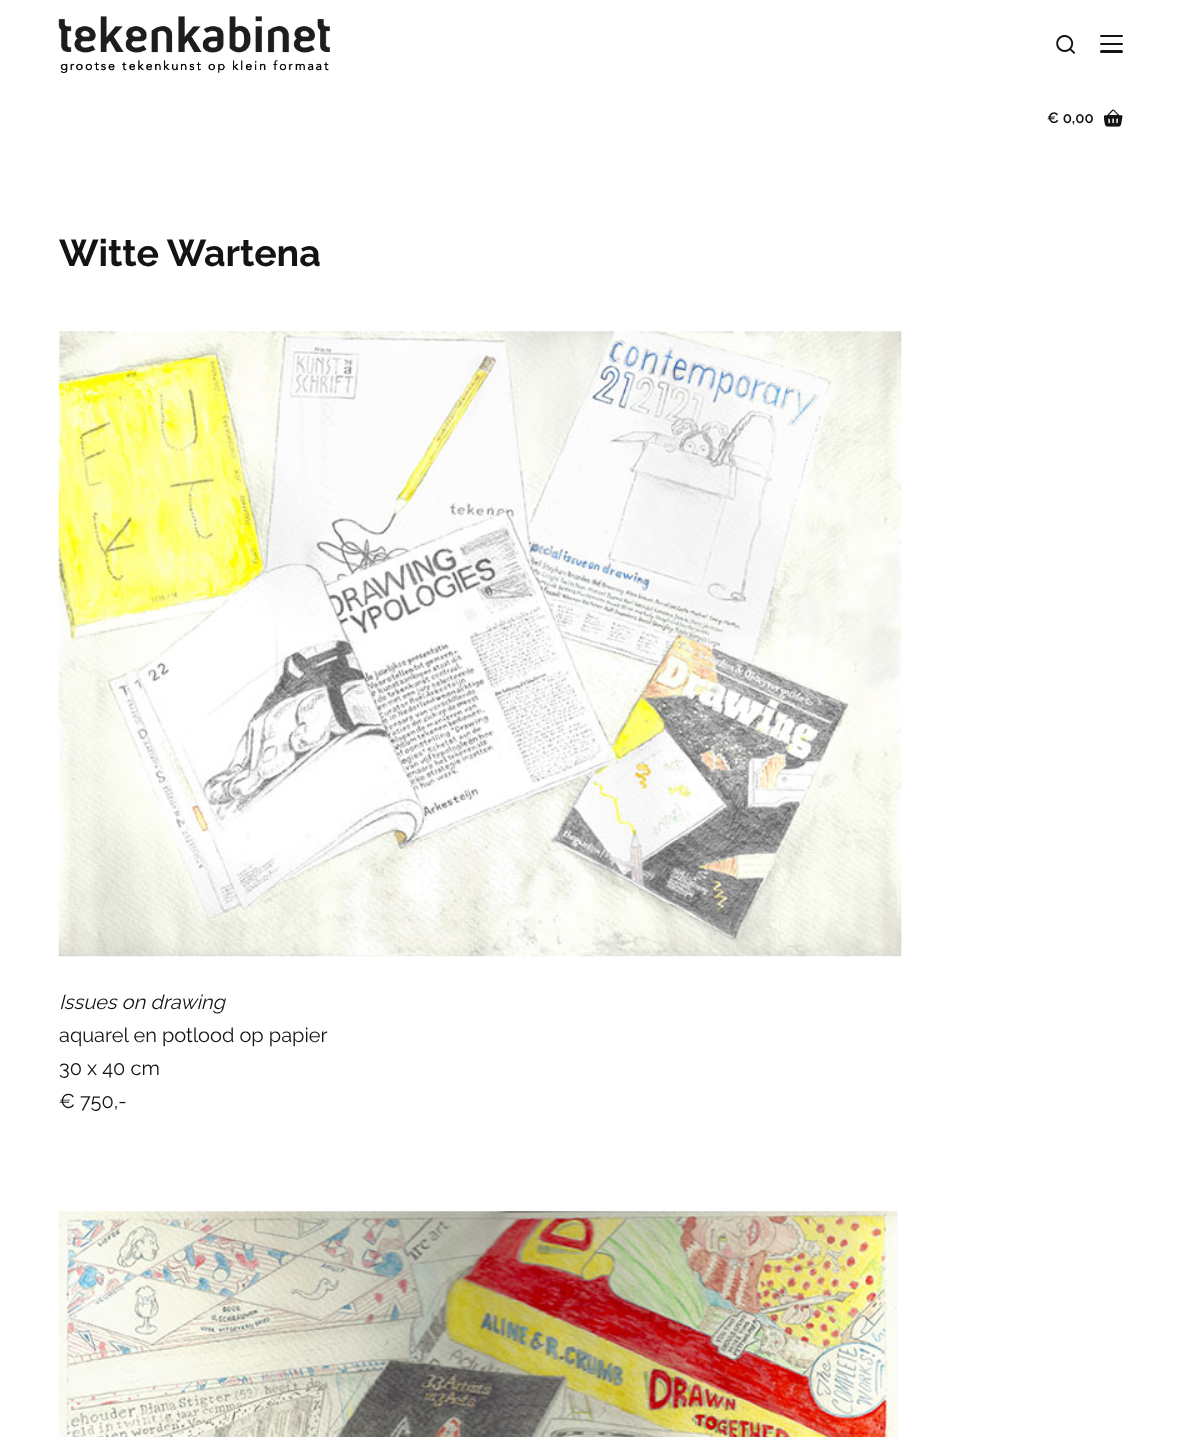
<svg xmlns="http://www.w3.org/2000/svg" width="1181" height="1437">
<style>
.a{font:600 15px Raleway;fill:#131313}
.b{font:bold 37.5px Raleway;fill:#131313}
.c{font:italic 20px Raleway;fill:#131313}
.d{font:20px Raleway;fill:#131313}
</style>
<rect width="100%" height="100%" fill="#fff"/>
<image href="1.png" x="58" y="16" width="272" height="57"/>
<image href="2.png" x="1056" y="35" width="19" height="19"/>
<rect fill="#131313" x="1100" y="35" width="23" height="2" rx="1"/>
<rect fill="#131313" x="1100" y="43" width="23" height="2" rx="1"/>
<rect fill="#131313" x="1100" y="50" width="23" height="3" rx="1.5"/>
<image href="3.png" x="1104" y="109" width="19" height="18"/>
<image href="4.png" x="58" y="331" width="844" height="626"/>
<image href="5.png" x="58" y="1211" width="840" height="226"/>
<text class="a" x="1047" y="123">€ 0,00</text>
<text class="b" x="59" y="266">Witte Wartena</text>
<text class="c" x="59" y="1009">Issues on drawing</text>
<text class="d" x="59" y="1042">aquarel en potlood op papier</text>
<text class="d" x="59" y="1075">30 x 40 cm</text>
<text class="d" x="59" y="1108">€ 750,-</text>
</svg>
